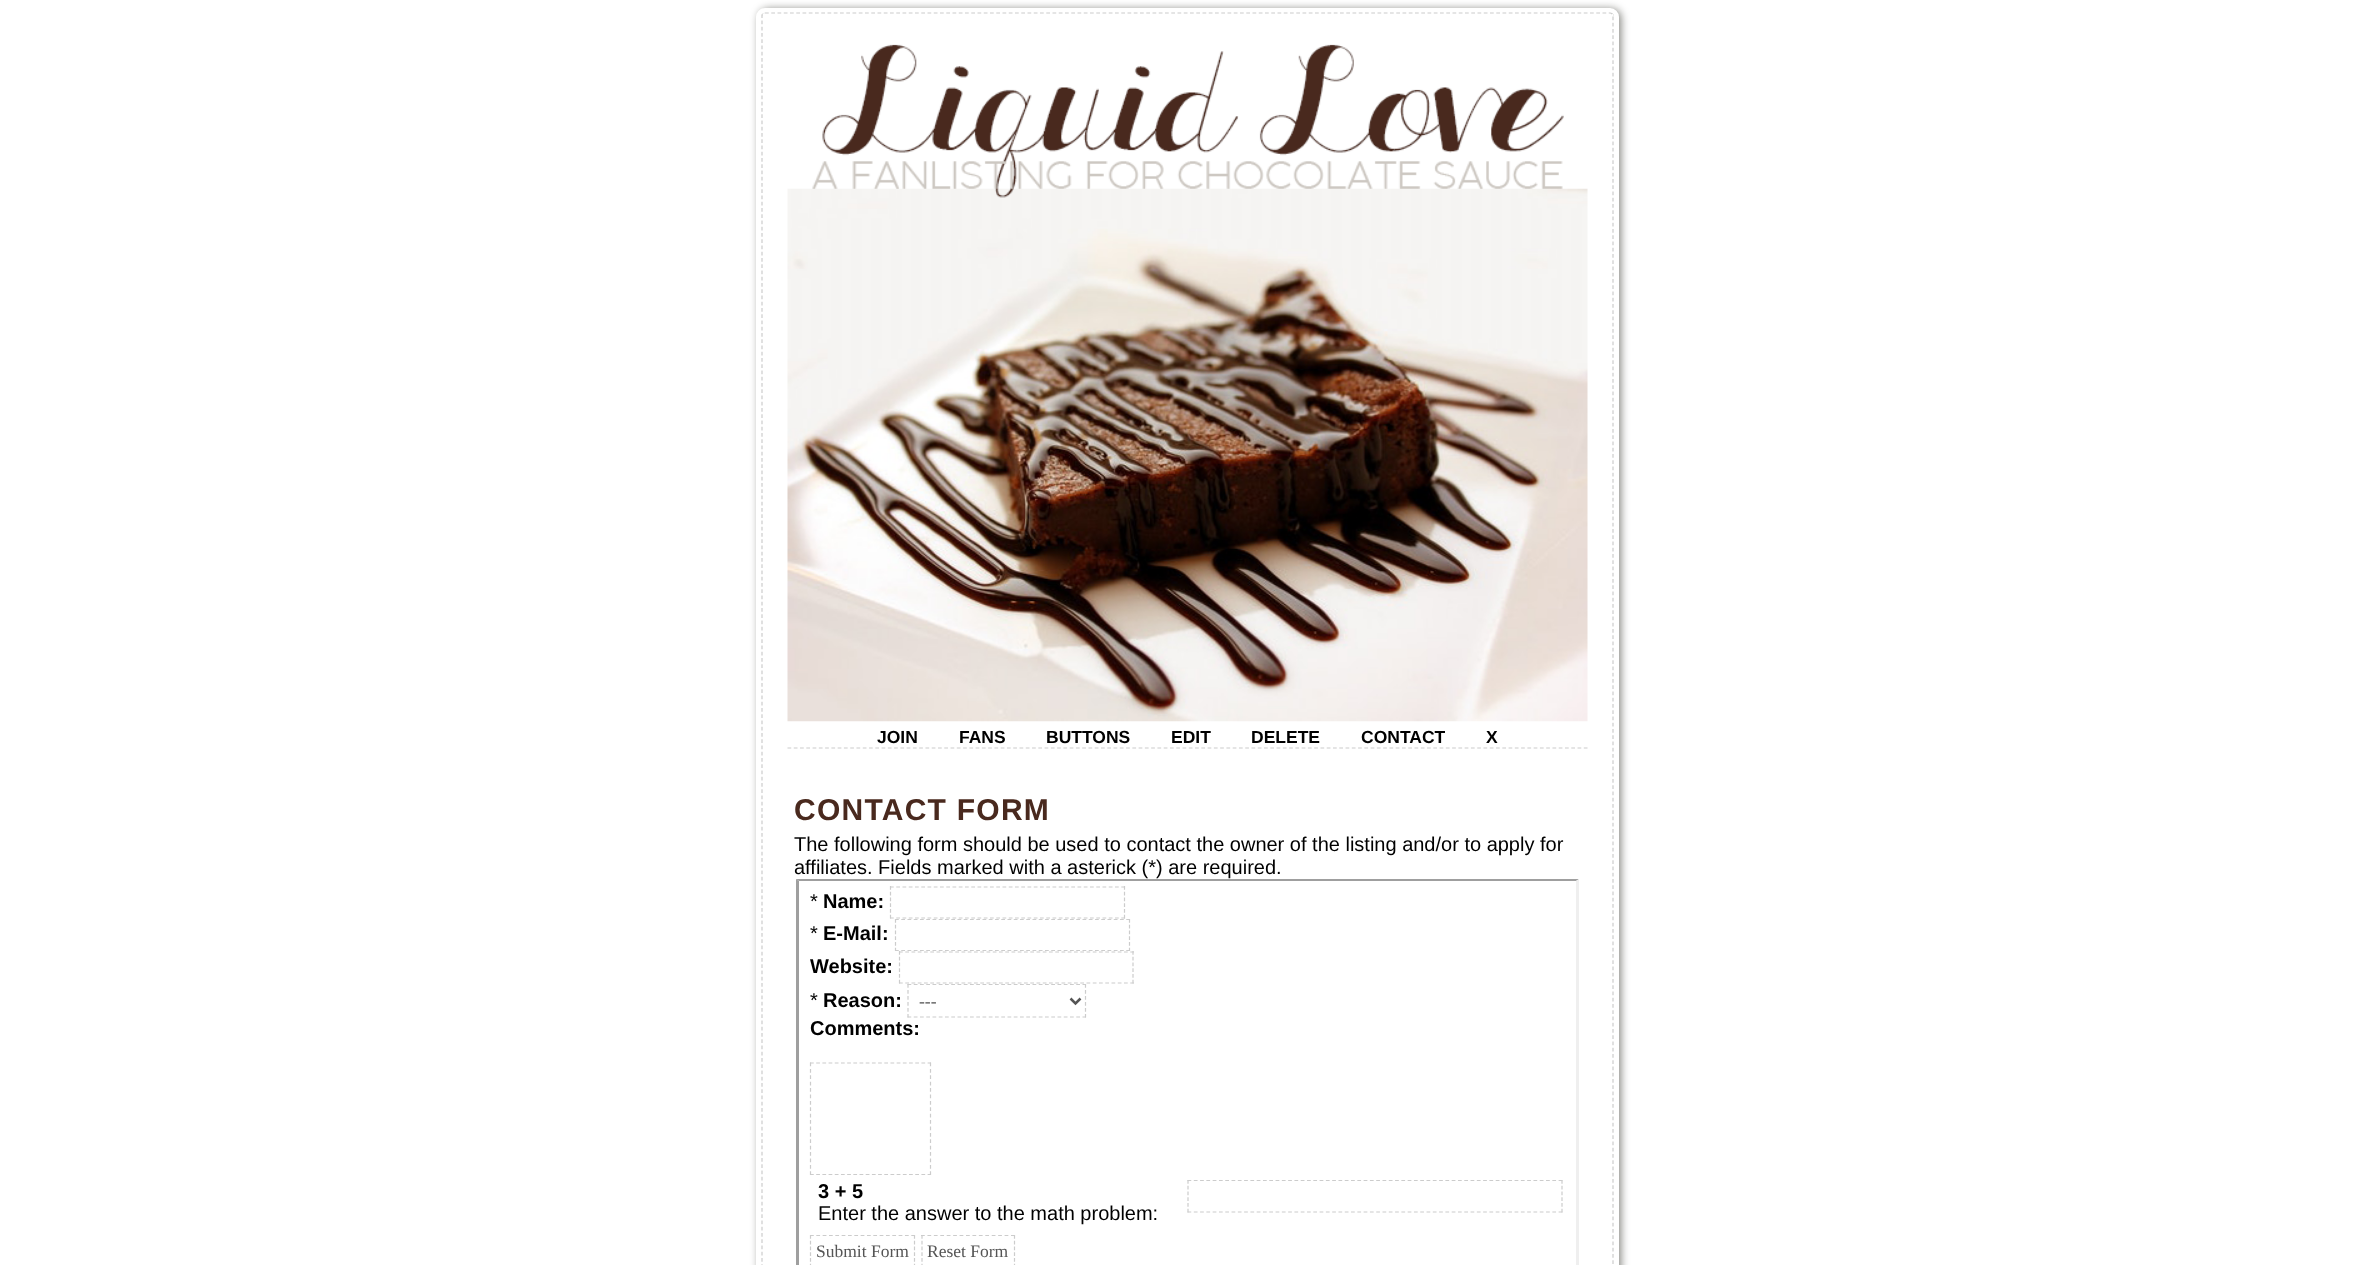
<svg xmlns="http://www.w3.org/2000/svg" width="2375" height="1265">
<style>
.a{font:bold 17.5px Liberation Sans;fill:#000}
.b{font:bold 30px Liberation Sans;letter-spacing:1.25px;fill:#49291e}
.c{font:20px Liberation Sans;fill:#000}
.d{font:bold 20px Liberation Sans;fill:#000}
.e{font:17.5px Liberation Serif;fill:#555}
</style>
<rect width="100%" height="100%" fill="#fff"/>
<rect fill="#0a0a0080" filter="blur(4px)" x="759" y="9" width="862" height="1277" rx="9"/>
<rect fill="none" stroke="#fff" stroke-width="5" x="758.5" y="10.5" width="858" height="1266" rx="6.5"/>
<rect fill="#fff" x="761" y="13" width="853" height="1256" rx="4"/>
<path fill="none" stroke="#ccc" stroke-width="1.2" stroke-dasharray="3.75 2.5" d="M765 13h845c1.5 0 3 1.5 3 3v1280c0 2-1.5 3.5-3 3.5h-845c-1.5 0-3-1.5-3-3.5v-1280c0-1.5 1.5-3 3-3z"/>
<image href="1.png" x="787" y="44" width="801" height="678"/>
<path fill="none" stroke="#ccc" stroke-width="1.2" stroke-dasharray="3.75 2.52" d="M787.5 748h800"/>
<path fill="#9f9f9f" d="M796 879h783l-3 2h-777z"/>
<path fill="#efefef" d="M1579 879v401l-3-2v-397z"/>
<path fill="#9f9f9f" d="M796 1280v-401l3 2v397z"/>
<path fill="none" stroke="#ccc" stroke-width="1.2" stroke-dasharray="3.75 2.5" d="M890 887h235"/>
<path fill="none" stroke="#ccc" stroke-width="1.2" stroke-dasharray="3.75 2" d="M1124.5 886v33"/>
<path fill="none" stroke="#ccc" stroke-width="1.2" stroke-dasharray="3.75 2.5" d="M890 918h235"/>
<path fill="none" stroke="#ccc" stroke-width="1.2" stroke-dasharray="3.75 2" d="M890.5 886v33"/>
<path fill="none" stroke="#ccc" stroke-width="1.2" stroke-dasharray="3.75 2.5" d="M895 919.5h235"/>
<path fill="none" stroke="#ccc" stroke-width="1.2" stroke-dasharray="3.75 2" d="M1129.5 919v32"/>
<path fill="none" stroke="#ccc" stroke-width="1.2" stroke-dasharray="3.75 2.5" d="M895 950.5h235"/>
<path fill="none" stroke="#ccc" stroke-width="1.2" stroke-dasharray="3.75 2" d="M895.5 919v32"/>
<path fill="#fff" d="M901 951h229v1H901z"/>
<path fill="none" stroke="#ccc" stroke-width="1.2" stroke-dasharray="3.75 2.5" d="M899 952h235"/>
<path fill="none" stroke="#ccc" stroke-width="1.2" stroke-dasharray="3.75 2" d="M1133 951v33"/>
<path fill="none" stroke="#ccc" stroke-width="1.2" stroke-dasharray="3.75 2.5" d="M899 983h235"/>
<path fill="none" stroke="#ccc" stroke-width="1.2" stroke-dasharray="3.75 2" d="M899.5 951v33"/>
<path fill="none" stroke="#ccc" stroke-width="1.2" stroke-dasharray="3.75 2.5" d="M907.5 984.5h178.5"/>
<path fill="none" stroke="#ccc" stroke-width="1.2" stroke-dasharray="3.75 2.25" d="M1085.5 984v33.5"/>
<path fill="none" stroke="#ccc" stroke-width="1.2" stroke-dasharray="3.75 2.5" d="M907.5 1017h178.5"/>
<path fill="none" stroke="#ccc" stroke-width="1.2" stroke-dasharray="3.75 2.25" d="M908 984v33.5"/>
<path fill="none" stroke="#555" stroke-width="2.5" d="M1070.5 998.5l5 5l5-5"/>
<path fill="none" stroke="#ccc" stroke-width="1.2" stroke-dasharray="3.75 2.44" d="M810 1063h121"/>
<path fill="none" stroke="#ccc" stroke-width="1.2" stroke-dasharray="3.75 2.65" d="M930.5 1062.5v112.5"/>
<path fill="none" stroke="#ccc" stroke-width="1.2" stroke-dasharray="3.75 2.44" d="M810 1174.5h121"/>
<path fill="none" stroke="#ccc" stroke-width="1.2" stroke-dasharray="3.75 2.65" d="M810.5 1062.5v112.5"/>
<path fill="none" stroke="#ccc" stroke-width="1.2" stroke-dasharray="3.75 2.54" d="M1187.5 1180.5h375"/>
<path fill="none" stroke="#ccc" stroke-width="1.2" stroke-dasharray="3.75 2" d="M1562 1180v32.5"/>
<path fill="none" stroke="#ccc" stroke-width="1.2" stroke-dasharray="3.75 2.54" d="M1187.5 1212h375"/>
<path fill="none" stroke="#ccc" stroke-width="1.2" stroke-dasharray="3.75 2" d="M1188 1180v32.5"/>
<path fill="none" stroke="#ccc" stroke-width="1.2" stroke-dasharray="3.75 2.58" d="M810 1235.5h105"/>
<path fill="none" stroke="#ccc" stroke-width="1.2" stroke-dasharray="3.75 2" d="M914.5 1235v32.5"/>
<path fill="none" stroke="#ccc" stroke-width="1.2" stroke-dasharray="3.75 2" d="M810.5 1235v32.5"/>
<path fill="none" stroke="#ccc" stroke-width="1.2" stroke-dasharray="3.75 2.68" d="M921 1235.5h94"/>
<path fill="none" stroke="#ccc" stroke-width="1.2" stroke-dasharray="3.75 2" d="M1014.5 1235v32.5"/>
<path fill="none" stroke="#ccc" stroke-width="1.2" stroke-dasharray="3.75 2" d="M922 1235v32.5"/>
<text class="a" x="877" y="743">JOIN</text>
<text class="a" x="959" y="743">FANS</text>
<text class="a" x="1046" y="743">BUTTONS</text>
<text class="a" x="1171" y="743">EDIT</text>
<text class="a" x="1251" y="743">DELETE</text>
<text class="a" x="1361" y="743">CONTACT</text>
<text class="a" x="1486" y="743">X</text>
<text class="b" x="794" y="820">CONTACT FORM</text>
<text class="c" x="794" y="851">The following form should be used to contact the owner of the listing and/or to apply for</text>
<text class="c" x="794" y="874">affiliates. Fields marked with a asterick (*) are required.</text>
<text class="c" x="810" y="908">*</text>
<text class="d" x="823" y="908">Name:</text>
<text class="c" x="810" y="940">*</text>
<text class="d" x="823" y="940">E-Mail:</text>
<text class="d" x="810" y="973">Website:</text>
<text class="c" x="810" y="1007">*</text>
<text class="d" x="823" y="1007">Reason:</text>
<text class="e" x="919" y="1007">---</text>
<text class="d" x="810" y="1035">Comments:</text>
<text class="d" x="818" y="1198">3 + 5</text>
<text class="c" x="818" y="1220">Enter the answer to the math problem:</text>
<text class="e" x="816" y="1257">Submit Form</text>
<text class="e" x="927" y="1257">Reset Form</text>
</svg>
